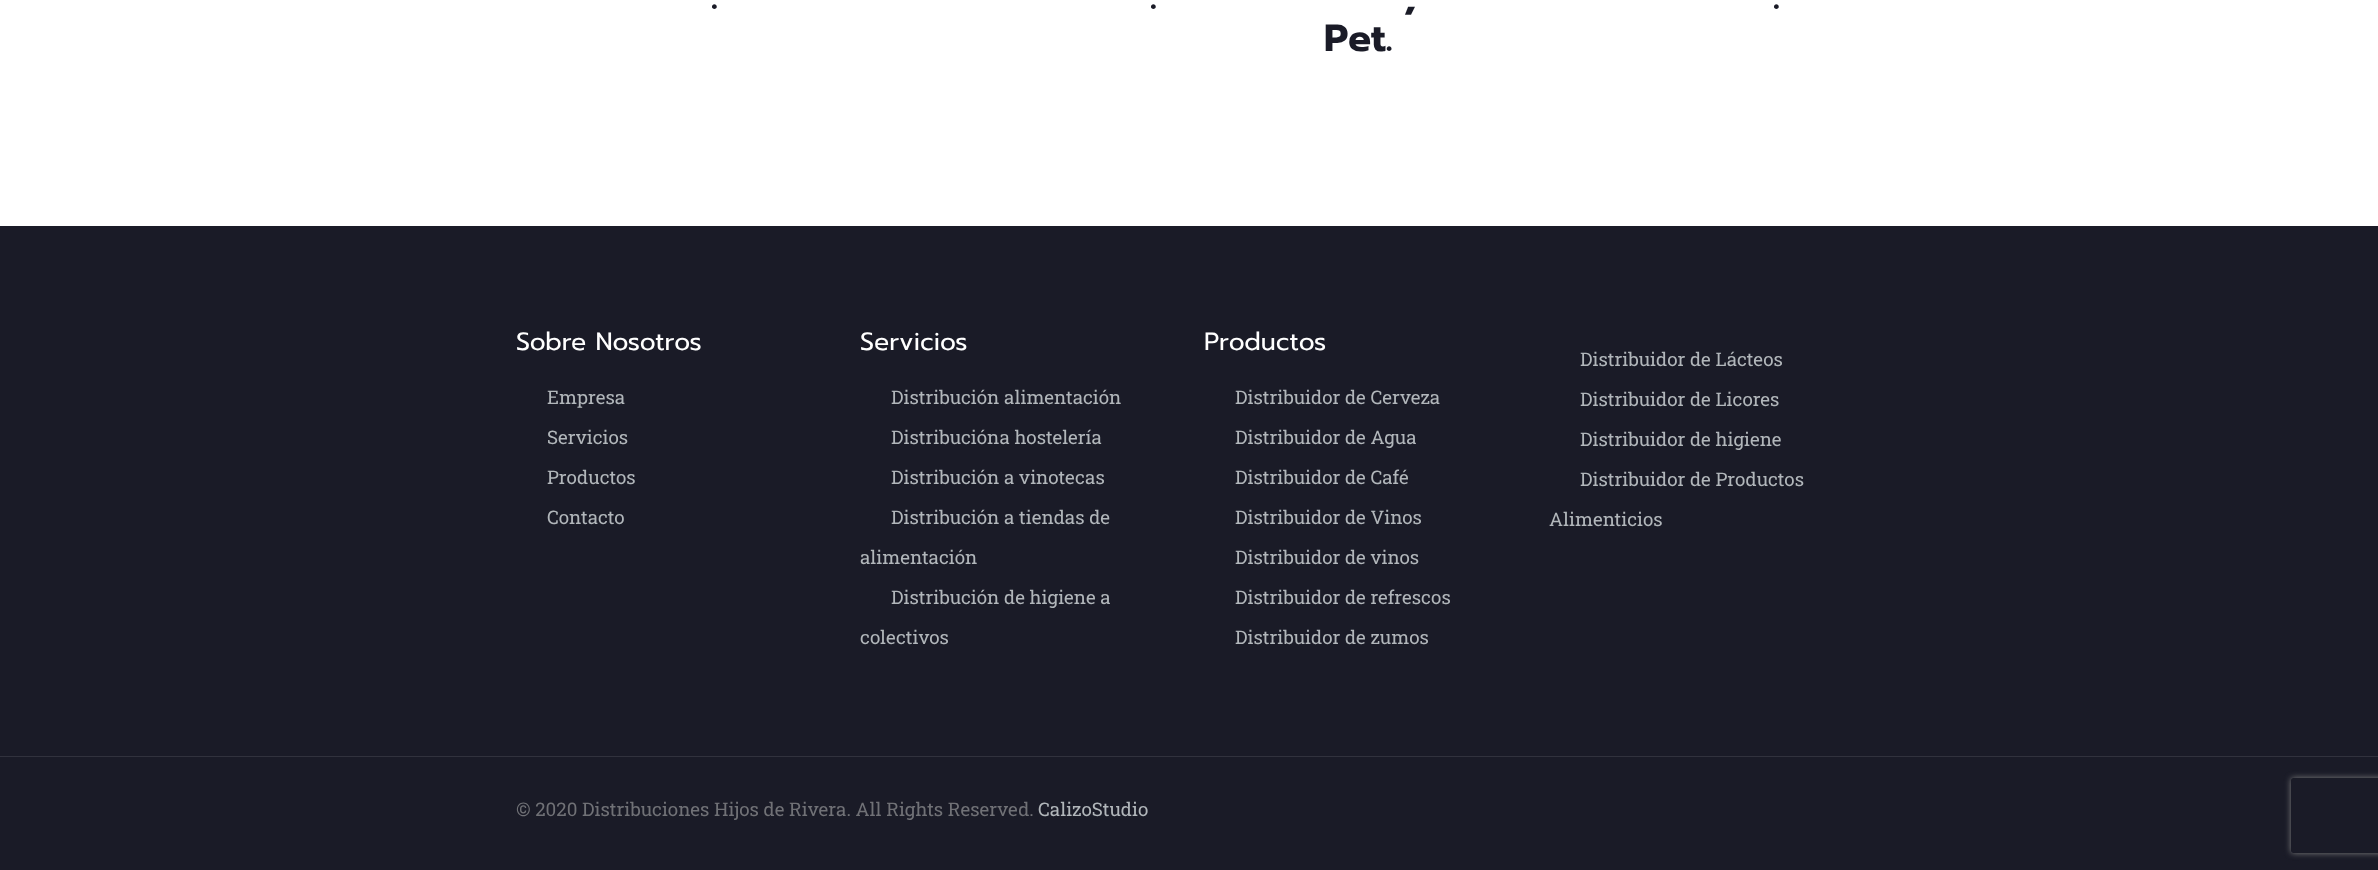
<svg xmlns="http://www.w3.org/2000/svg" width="2378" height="870">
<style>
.a{font:bold 38px Prompt;fill:#1a1b27}
.b{font:25px Prompt;fill:#fff}
.c{font:18.75px Roboto Slab;fill:#b1b6ba}
.d{font:18.75px Roboto Slab;fill:#707176}
</style>
<defs>
<clipPath id="clip1"><path d="M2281 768h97v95h-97zm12.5 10h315c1.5 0 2.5 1 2.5 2.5v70c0 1.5-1 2.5-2.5 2.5h-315c-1.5 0-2.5-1-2.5-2.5v-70c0-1.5 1-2.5 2.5-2.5z" clip-rule="evenodd"/></clipPath>
</defs>
<rect width="100%" height="100%" fill="#fff"/>
<path fill="#1a1b27" d="M0 226h2378v644H0z"/>
<path fill="#31323d" d="M0 756h2378v1H0z"/>
<g clip-path="url(#clip1)">
<rect fill="#808080" filter="blur(3px)" x="2291" y="778" width="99" height="75" rx="2.5"/>
</g>
<text class="a" x="711" y="9">.</text>
<text class="a" x="1150" y="9">.</text>
<text class="a" x="1404" y="9">,</text>
<text class="a" x="1324" y="51">Pet.</text>
<text class="a" x="1773" y="9">.</text>
<text class="b" x="516" y="350">Sobre Nosotros</text>
<text class="c" x="547" y="404">Empresa</text>
<text class="c" x="547" y="444">Servicios</text>
<text class="c" x="547" y="484">Productos</text>
<text class="c" x="547" y="524">Contacto</text>
<text class="b" x="860" y="350">Servicios</text>
<text class="c" x="891" y="404">Distribución alimentación</text>
<text class="c" x="891" y="444">Distribucióna hostelería</text>
<text class="c" x="891" y="484">Distribución a vinotecas</text>
<text class="c" x="891" y="524">Distribución a tiendas de</text>
<text class="c" x="860" y="564">alimentación</text>
<text class="c" x="891" y="604">Distribución de higiene a</text>
<text class="c" x="860" y="644">colectivos</text>
<text class="b" x="1204" y="350">Productos</text>
<text class="c" x="1235" y="404">Distribuidor de Cerveza</text>
<text class="c" x="1235" y="444">Distribuidor de Agua</text>
<text class="c" x="1235" y="484">Distribuidor de Café</text>
<text class="c" x="1235" y="524">Distribuidor de Vinos</text>
<text class="c" x="1235" y="564">Distribuidor de vinos</text>
<text class="c" x="1235" y="604">Distribuidor de refrescos</text>
<text class="c" x="1235" y="644">Distribuidor de zumos</text>
<text class="c" x="1580" y="366">Distribuidor de Lácteos</text>
<text class="c" x="1580" y="406">Distribuidor de Licores</text>
<text class="c" x="1580" y="446">Distribuidor de higiene</text>
<text class="c" x="1580" y="486">Distribuidor de Productos</text>
<text class="c" x="1549" y="526">Alimenticios</text>
<text class="d" x="516" y="816">© 2020 Distribuciones Hijos de Rivera. All Rights Reserved.</text>
<text class="c" x="1038" y="816">CalizoStudio</text>
</svg>
